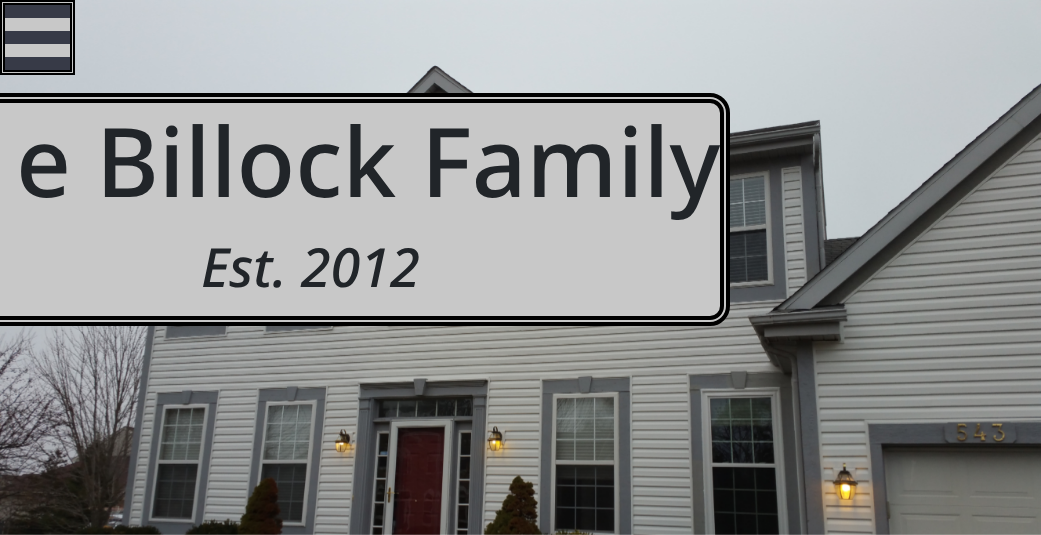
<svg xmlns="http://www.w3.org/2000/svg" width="1041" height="535">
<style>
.a{font:500 96px Noto Sans;fill:#212529}
.b{font:italic 500 54px Noto Sans;fill:#212529}
</style>
<rect width="100%" height="100%" fill="#fff"/>
<image href="1.png" x="0" y="0" width="1041" height="535"/>
<path fill="#c8c8c8" stroke="#000" stroke-width="2" d="M1 1h73v73H1z"/>
<path fill="none" stroke="#000" stroke-width="2" d="M4 4h67v67H4z"/>
<path fill="#373a47" d="M5 5h65v13H5z"/>
<path fill="#373a47" d="M5 31h65v13H5z"/>
<path fill="#373a47" d="M5 57h65v13H5z"/>
<rect fill="#c8c8c8" stroke="#000" stroke-width="4" x="-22" y="95" width="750" height="229" rx="18"/>
<rect fill="none" stroke="#000" stroke-width="4" x="-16" y="101" width="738" height="217" rx="12"/>
<text class="a" x="16" y="197">e Billock Family</text>
<text class="b" x="201" y="287">Est. 2012</text>
</svg>
